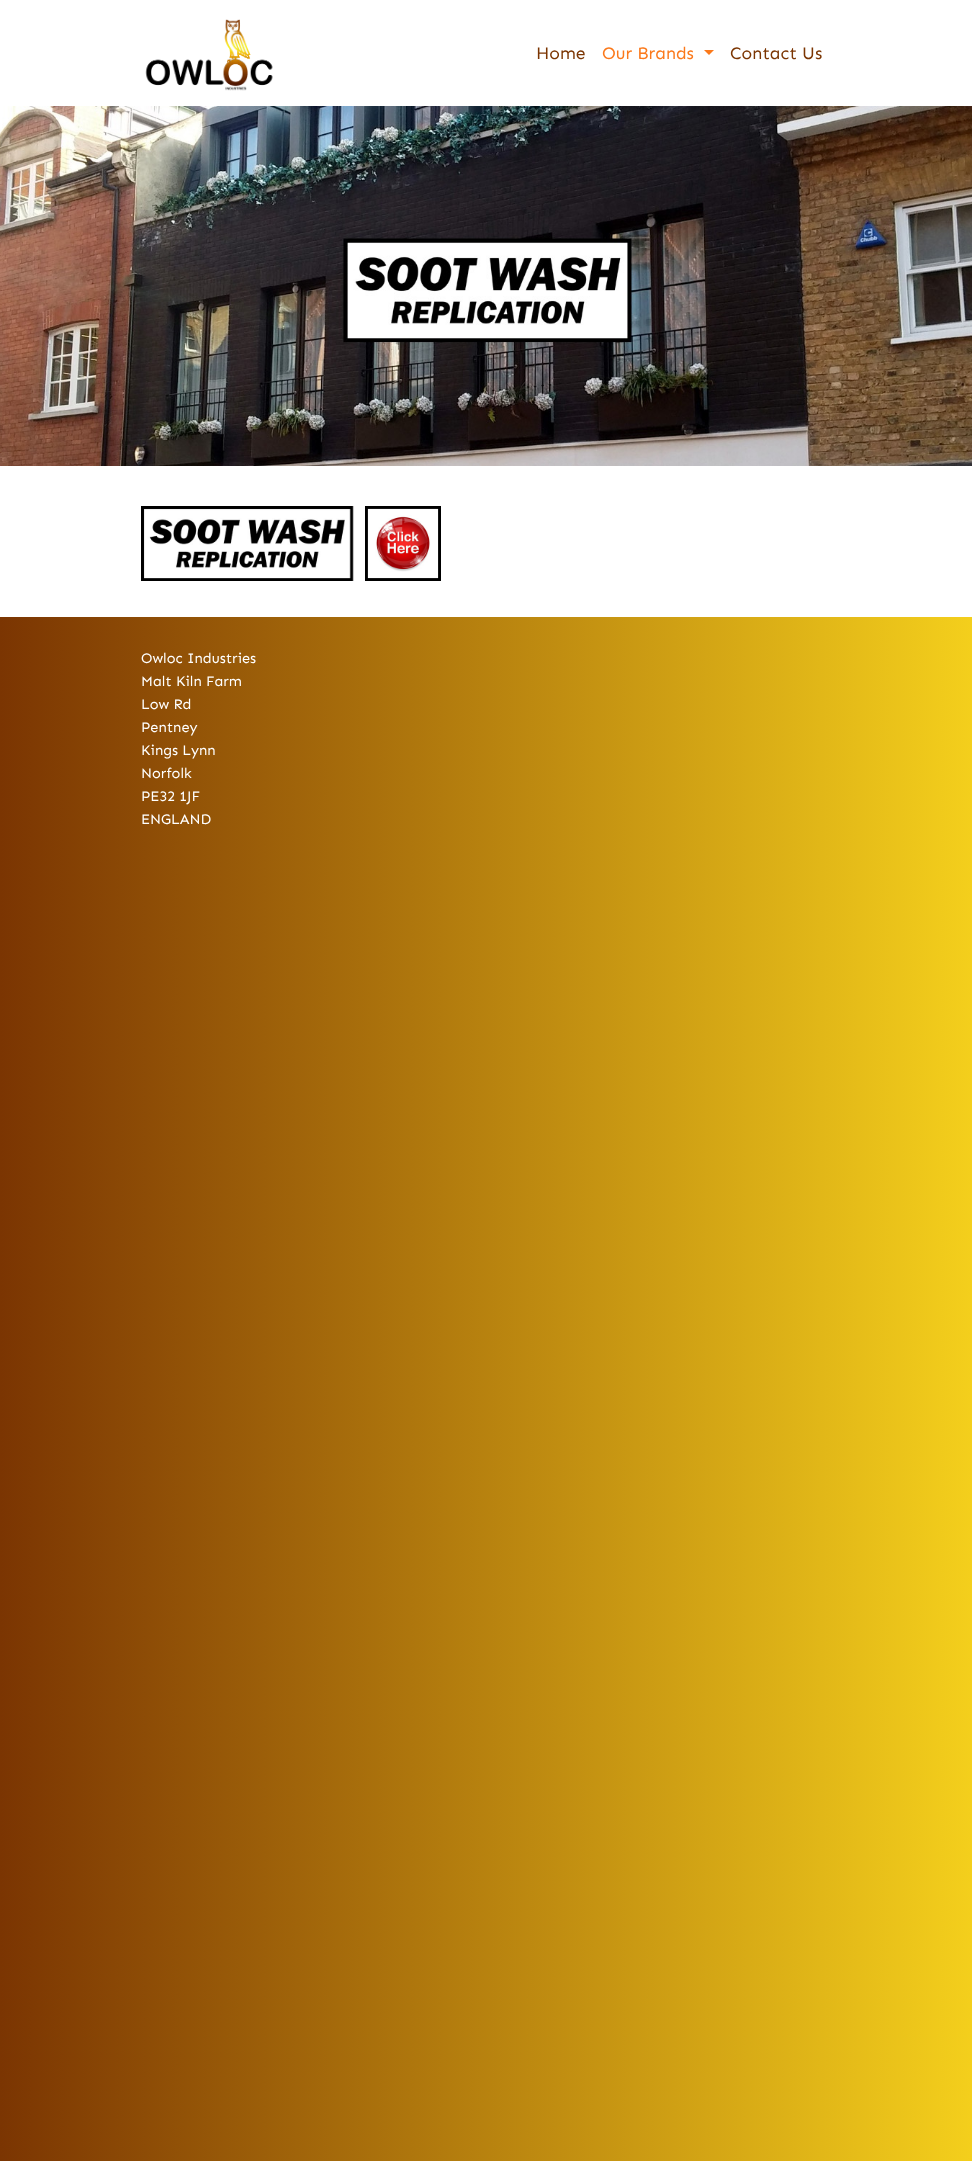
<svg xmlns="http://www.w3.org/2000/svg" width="972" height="2161">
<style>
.a{font:17.5px Sen;fill:#7b3502}
.b{font:17.5px Sen;fill:#fb791b}
.c{font:14.5px Sen;fill:#fff}
</style>
<defs>
<linearGradient id="g1" gradientUnits="userSpaceOnUse" x1="0" y1="439" x2="972" y2="439"><stop offset="0" stop-color="#7b3502"/><stop offset="1" stop-color="#f4cf1c"/></linearGradient>
</defs>
<rect width="100%" height="100%" fill="#fff"/>
<path fill="url(#g1)" d="M0 617h972v1544H0z"/>
<image href="1.png" x="145" y="19" width="128" height="72"/>
<path fill="#fb791b" d="M704 50h10l-5 5z"/>
<image href="2.png" x="0" y="106" width="972" height="360"/>
<image href="3.png" x="141" y="506" width="300" height="75"/>
<text class="a" x="536" y="59">Home</text>
<text class="b" x="602" y="59">Our Brands</text>
<text class="a" x="730" y="59">Contact Us</text>
<text class="c" x="141" y="663">Owloc Industries</text>
<text class="c" x="141" y="686">Malt Kiln Farm</text>
<text class="c" x="141" y="709">Low Rd</text>
<text class="c" x="141" y="732">Pentney</text>
<text class="c" x="141" y="755">Kings Lynn</text>
<text class="c" x="141" y="778">Norfolk</text>
<text class="c" x="141" y="801">PE32 1JF</text>
<text class="c" x="141" y="824">ENGLAND</text>
</svg>
